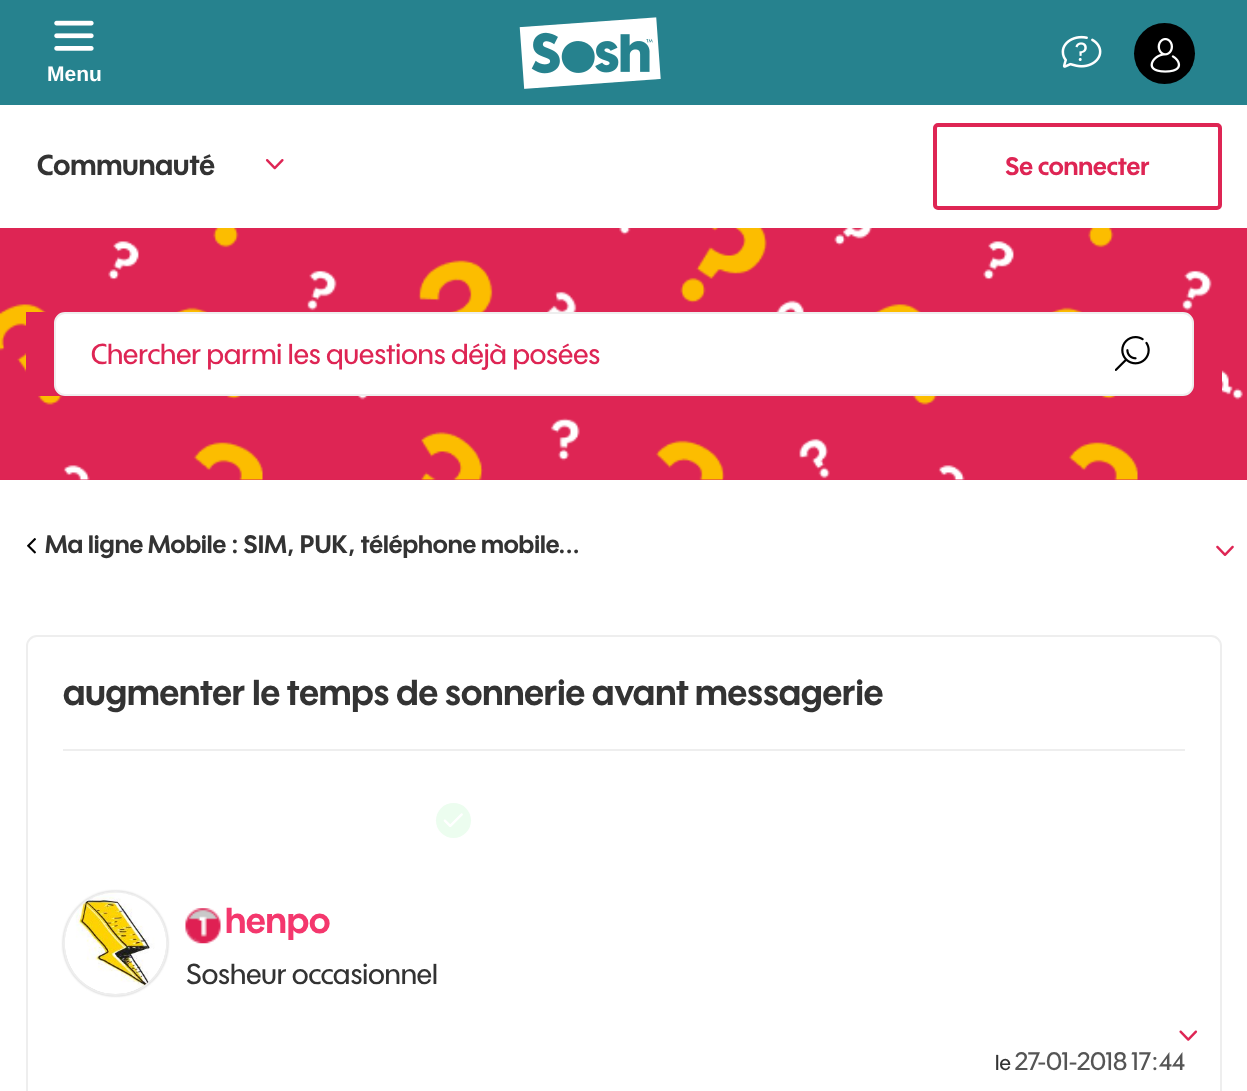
<svg xmlns="http://www.w3.org/2000/svg" width="1247" height="1091">
<style>
.a{font:bold 21px Liberation Sans;fill:#fff}
.b{font:bold 28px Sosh;fill:#333}
.c{font:bold 24.5px Sosh;fill:#de2554}
.d{font:500 28px Sosh;fill:#de2554}
.e{font:bold 24.5px Sosh;fill:#333}
.f{font:bold 35px Sosh;fill:#333}
.g{font:bold 35px Sosh;fill:#f4376d}
.h{font:500 28px Sosh;fill:#333}
.i{font:500 21px Sosh;fill:#333}
.j{font:500 24.5px Sosh;fill:#555}
</style>
<rect width="100%" height="100%" fill="#fff"/>
<path fill="#26828e" d="M0 0h1247v105H0z"/>
<image href="1.png" x="54" y="20" width="40" height="31"/>
<image href="2.png" x="519" y="17" width="142" height="72"/>
<image href="3.png" x="1061" y="35" width="41" height="33"/>
<circle fill="#000" cx="1164.5" cy="53.5" r="30.5"/>
<image href="4.png" x="1150" y="38" width="31" height="35"/>
<image href="5.png" x="265" y="159" width="19" height="11"/>
<rect fill="none" stroke="#de2554" stroke-width="4" x="935" y="125" width="285" height="83" rx="3"/>
<path fill="#de2554" d="M0 479h1247v1H0z"/>
<image href="6.png" x="0" y="228" width="1247" height="252"/>
<path fill="#de2554" d="M26 312h1196v84H26z"/>
<rect fill="#fff" stroke="#eee" stroke-width="2" x="55" y="313" width="1138" height="82" rx="10"/>
<image href="7.png" x="1115" y="336" width="35" height="35"/>
<image href="8.png" x="27" y="538" width="9" height="16"/>
<image href="9.png" x="1216" y="545" width="18" height="11"/>
<rect fill="none" stroke="#eee" stroke-width="2" x="27" y="636" width="1194" height="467" rx="10"/>
<path fill="#eee" d="M63 749h1122v2H63z"/>
<circle fill="#ecfdef" cx="453.5" cy="820.5" r="17.5"/>
<image href="10.png" x="443" y="813" width="20" height="14"/>
<rect fill="#c4c4c4" filter="blur(1px)" x="63" y="891" width="105" height="105" rx="52.5"/>
<circle fill="none" stroke="#eee" stroke-width="2" cx="115.5" cy="943.5" r="51.5"/>
<image href="11.png" x="65" y="892" width="101" height="102"/>
<image href="12.png" x="185" y="908" width="36" height="36"/>
<image href="13.png" x="1179" y="1030" width="19" height="11"/>
<text class="a" x="47" y="81">Menu</text>
<text class="b" x="37" y="175">Communauté</text>
<text class="c" x="1005" y="175">Se connecter</text>
<text class="d" x="91" y="364">Chercher parmi les questions déjà posées</text>
<text class="e" x="45" y="553">Ma ligne Mobile : SIM, PUK, téléphone mobile...</text>
<text class="f" x="63" y="705">augmenter le temps de sonnerie avant messagerie</text>
<text class="g" x="225" y="933">henpo</text>
<text class="h" x="186" y="984">Sosheur occasionnel</text>
<text class="i" x="995" y="1070">le</text>
<text class="j" x="1015" y="1070">27-01-2018</text>
<text class="j" x="1131" y="1070">17:44</text>
</svg>
